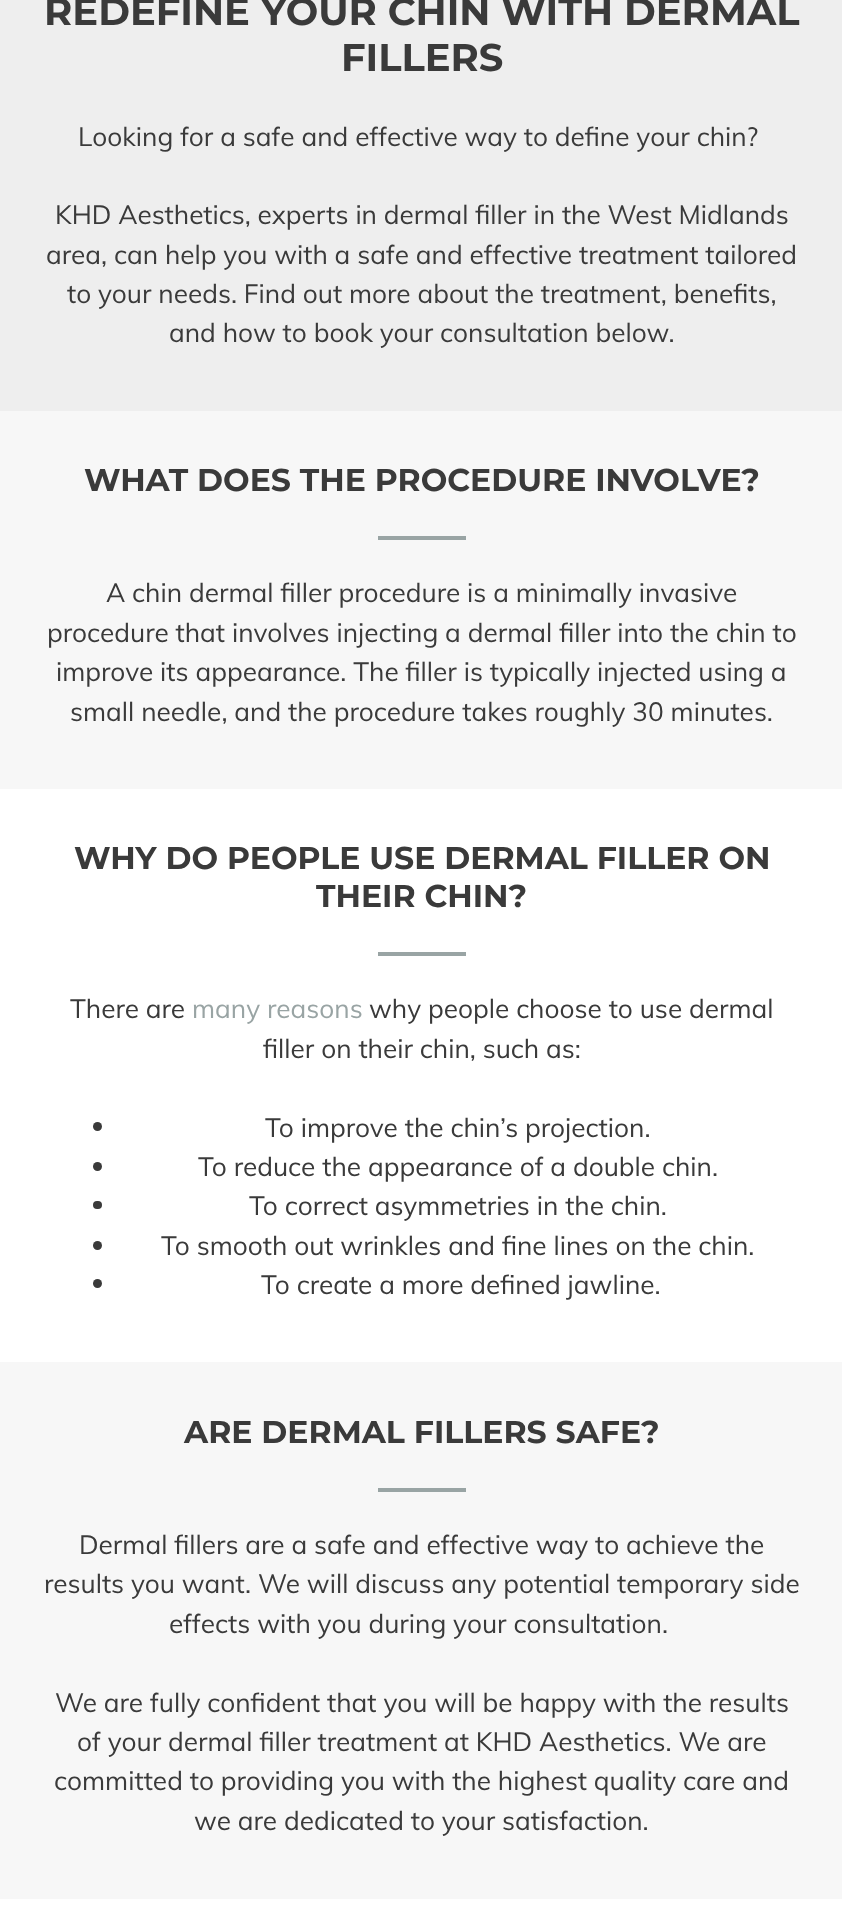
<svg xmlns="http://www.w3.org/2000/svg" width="842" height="1923">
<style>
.a{font:bold 38.5px Montserrat;fill:#3a3a3a}
.b{font:26.25px Muli;fill:#3a3a3a}
.c{font:bold 31.5px Montserrat;fill:#3a3a3a}
.d{font:26.25px Muli;fill:#99a4a4}
</style>
<rect width="100%" height="100%" fill="#f7f7f7"/>
<path fill="#eee" d="M0 0h842v411H0z"/>
<path fill="#99a4a4" d="M378 536h88v4H378z"/>
<path fill="#fff" d="M0 789h842v573H0z"/>
<path fill="#99a4a4" d="M378 952h88v4H378z"/>
<circle fill="#3a3a3a" cx="97.5" cy="1126.5" r="4.5"/>
<circle fill="#3a3a3a" cx="97.5" cy="1166.5" r="4.5"/>
<rect fill="#3a3a3a" x="93" y="1201" width="9" height="8" rx="4"/>
<circle fill="#3a3a3a" cx="97.5" cy="1245.5" r="4.5"/>
<circle fill="#3a3a3a" cx="97.5" cy="1283.5" r="4.5"/>
<path fill="#99a4a4" d="M378 1488h88v4H378z"/>
<path fill="#fff" d="M0 1899h842v24H0z"/>
<text class="a" x="44" y="25">REDEFINE YOUR CHIN WITH DERMAL</text>
<text class="a" x="341" y="71">FILLERS</text>
<text class="b" x="78" y="146">Looking for a safe and effective way to define your chin?</text>
<text class="b" x="55" y="224">KHD Aesthetics, experts in dermal filler in the West Midlands</text>
<text class="b" x="46" y="264">area, can help you with a safe and effective treatment tailored</text>
<text class="b" x="67" y="303">to your needs. Find out more about the treatment, benefits,</text>
<text class="b" x="169" y="342">and how to book your consultation below.</text>
<text class="c" x="84" y="491">WHAT DOES THE PROCEDURE INVOLVE?</text>
<text class="b" x="106" y="602">A chin dermal filler procedure is a minimally invasive</text>
<text class="b" x="47" y="642">procedure that involves injecting a dermal filler into the chin to</text>
<text class="b" x="56" y="681">improve its appearance. The filler is typically injected using a</text>
<text class="b" x="70" y="721">small needle, and the procedure takes roughly 30 minutes.</text>
<text class="c" x="74" y="869">WHY DO PEOPLE USE DERMAL FILLER ON</text>
<text class="c" x="316" y="907">THEIR CHIN?</text>
<text class="b" x="70" y="1018">There are</text>
<text class="d" x="192" y="1018">many reasons</text>
<text class="b" x="369" y="1018">why people choose to use dermal</text>
<text class="b" x="263" y="1058">filler on their chin, such as:</text>
<text class="b" x="265" y="1137">To improve the chin’s projection.</text>
<text class="b" x="198" y="1176">To reduce the appearance of a double chin.</text>
<text class="b" x="249" y="1215">To correct asymmetries in the chin.</text>
<text class="b" x="161" y="1255">To smooth out wrinkles and fine lines on the chin.</text>
<text class="b" x="261" y="1294">To create a more defined jawline.</text>
<text class="c" x="184" y="1443">ARE DERMAL FILLERS SAFE?</text>
<text class="b" x="79" y="1554">Dermal fillers are a safe and effective way to achieve the</text>
<text class="b" x="44" y="1593">results you want. We will discuss any potential temporary side</text>
<text class="b" x="169" y="1633">effects with you during your consultation.</text>
<text class="b" x="55" y="1712">We are fully confident that you will be happy with the results</text>
<text class="b" x="77" y="1751">of your dermal filler treatment at KHD Aesthetics. We are</text>
<text class="b" x="54" y="1790">committed to providing you with the highest quality care and</text>
<text class="b" x="194" y="1830">we are dedicated to your satisfaction.</text>
</svg>
